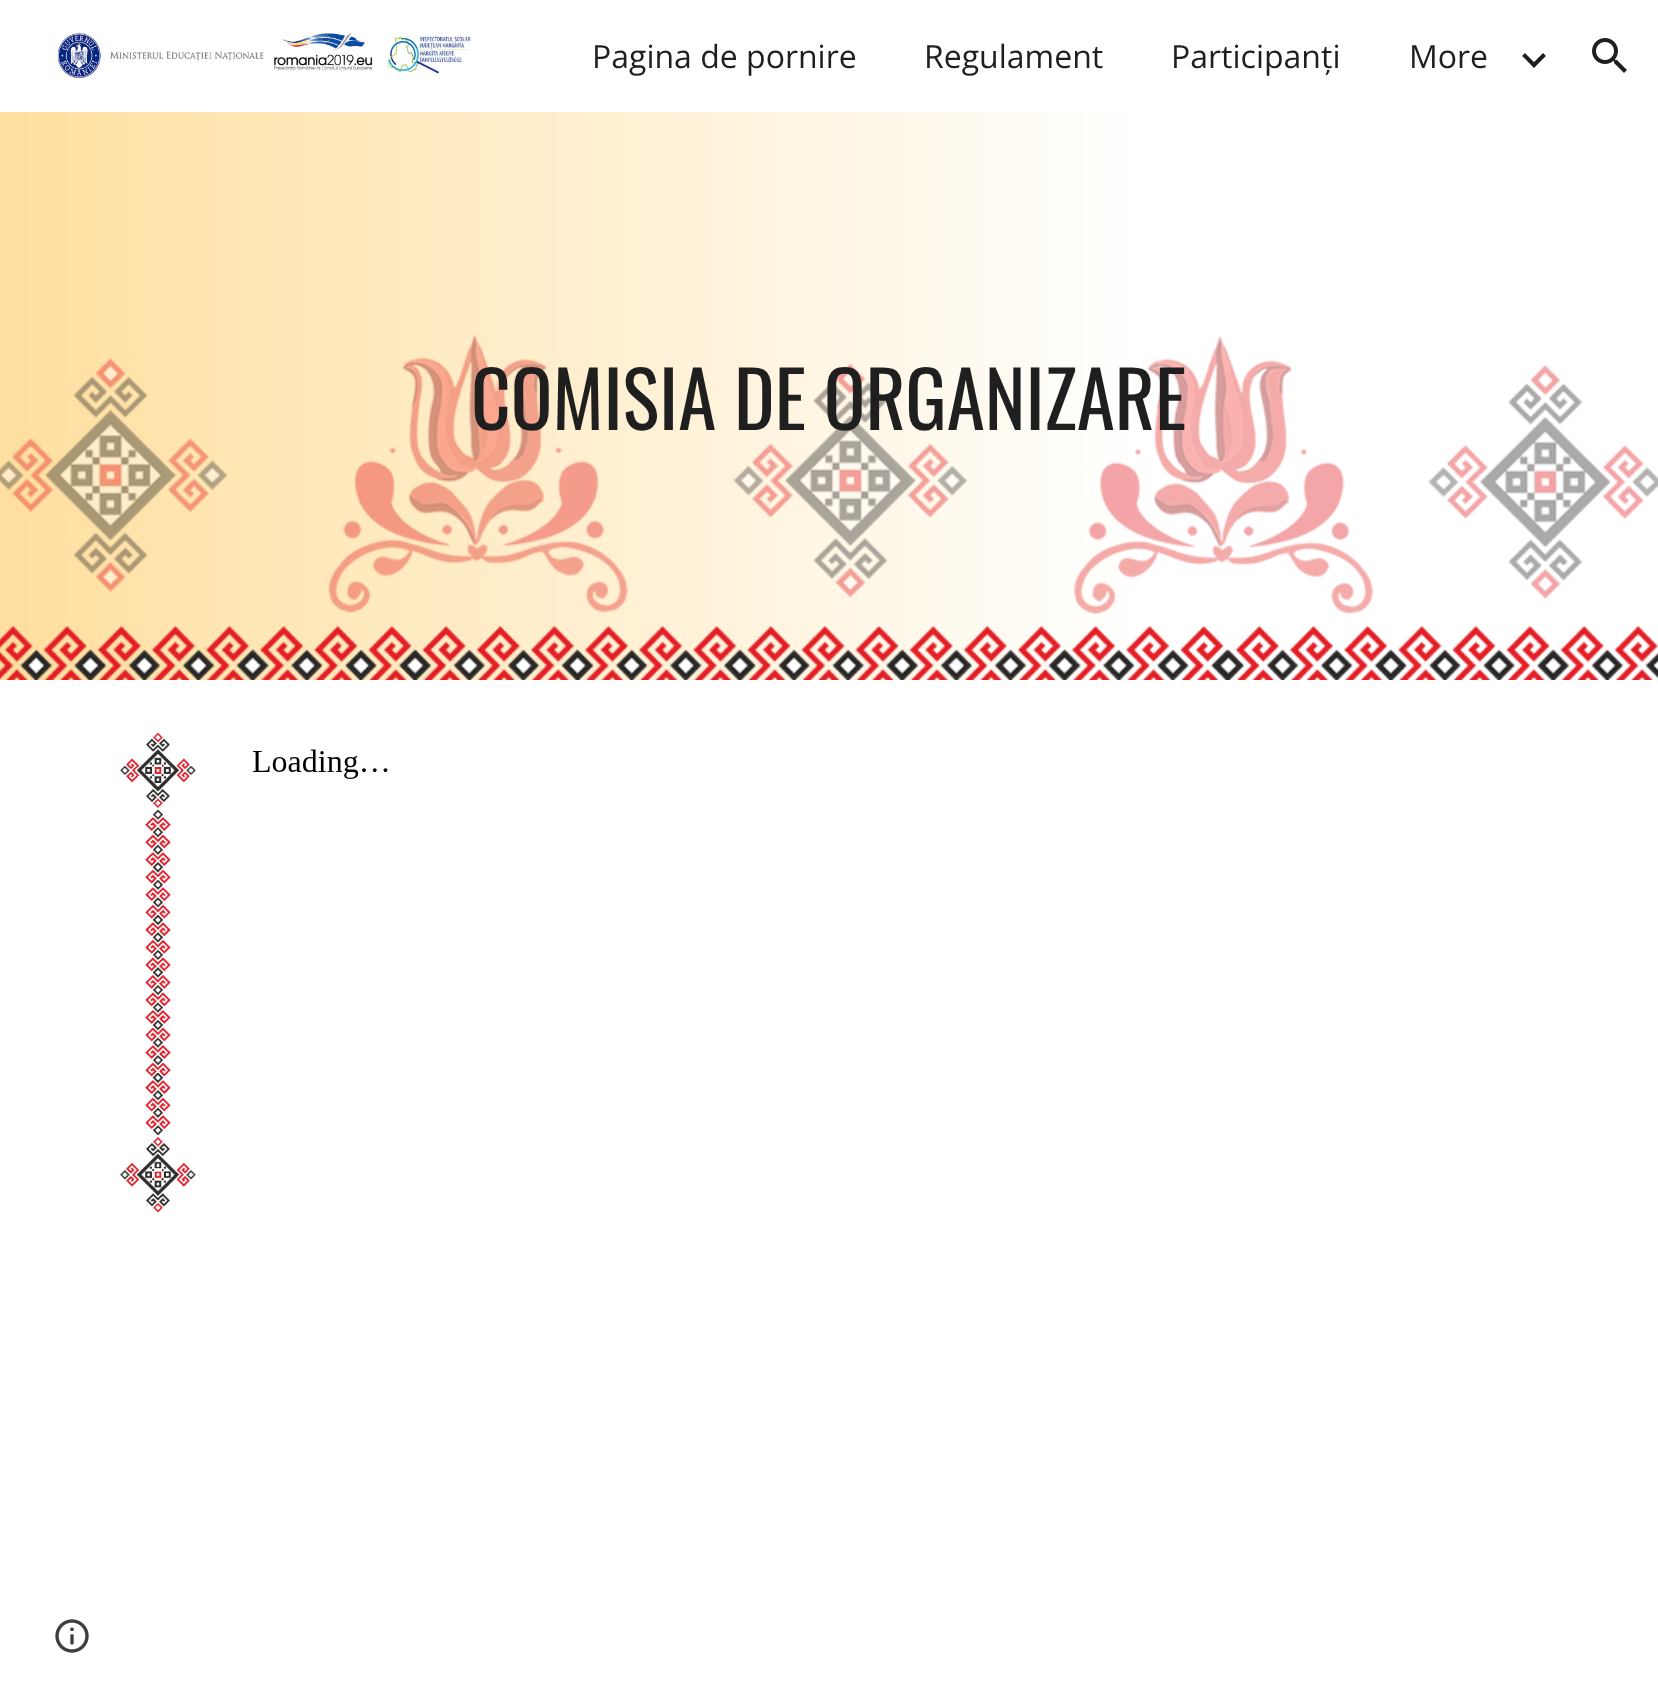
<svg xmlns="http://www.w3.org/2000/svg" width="1658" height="1703">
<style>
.a{font:32px Open Sans;fill:#1f1f1f}
.b{font:77.25px Oswald;fill:#1f1f1f}
</style>
<rect width="100%" height="100%" fill="#fff"/>
<image href="1.png" x="57" y="32" width="414" height="46"/>
<path fill="none" stroke="#1f1f1f" stroke-width="4" d="M1523.5 54.5l12 12m-3 0l12-12"/>
<image href="2.png" x="1592" y="38" width="35" height="35"/>
<image href="3.png" x="0" y="112" width="1658" height="568"/>
<image href="4.png" x="120" y="732" width="76" height="481"/>
<image href="5.png" x="252" y="749" width="136" height="30"/>
<image href="6.png" x="55" y="1619" width="34" height="34"/>
<text class="a" x="592" y="68">Pagina de pornire</text>
<text class="a" x="924" y="68">Regulament</text>
<text class="a" x="1171" y="68">Participanți</text>
<text class="a" x="1409" y="68">More</text>
<text class="b" x="471" y="430">COMISIA DE ORGANIZARE</text>
</svg>
